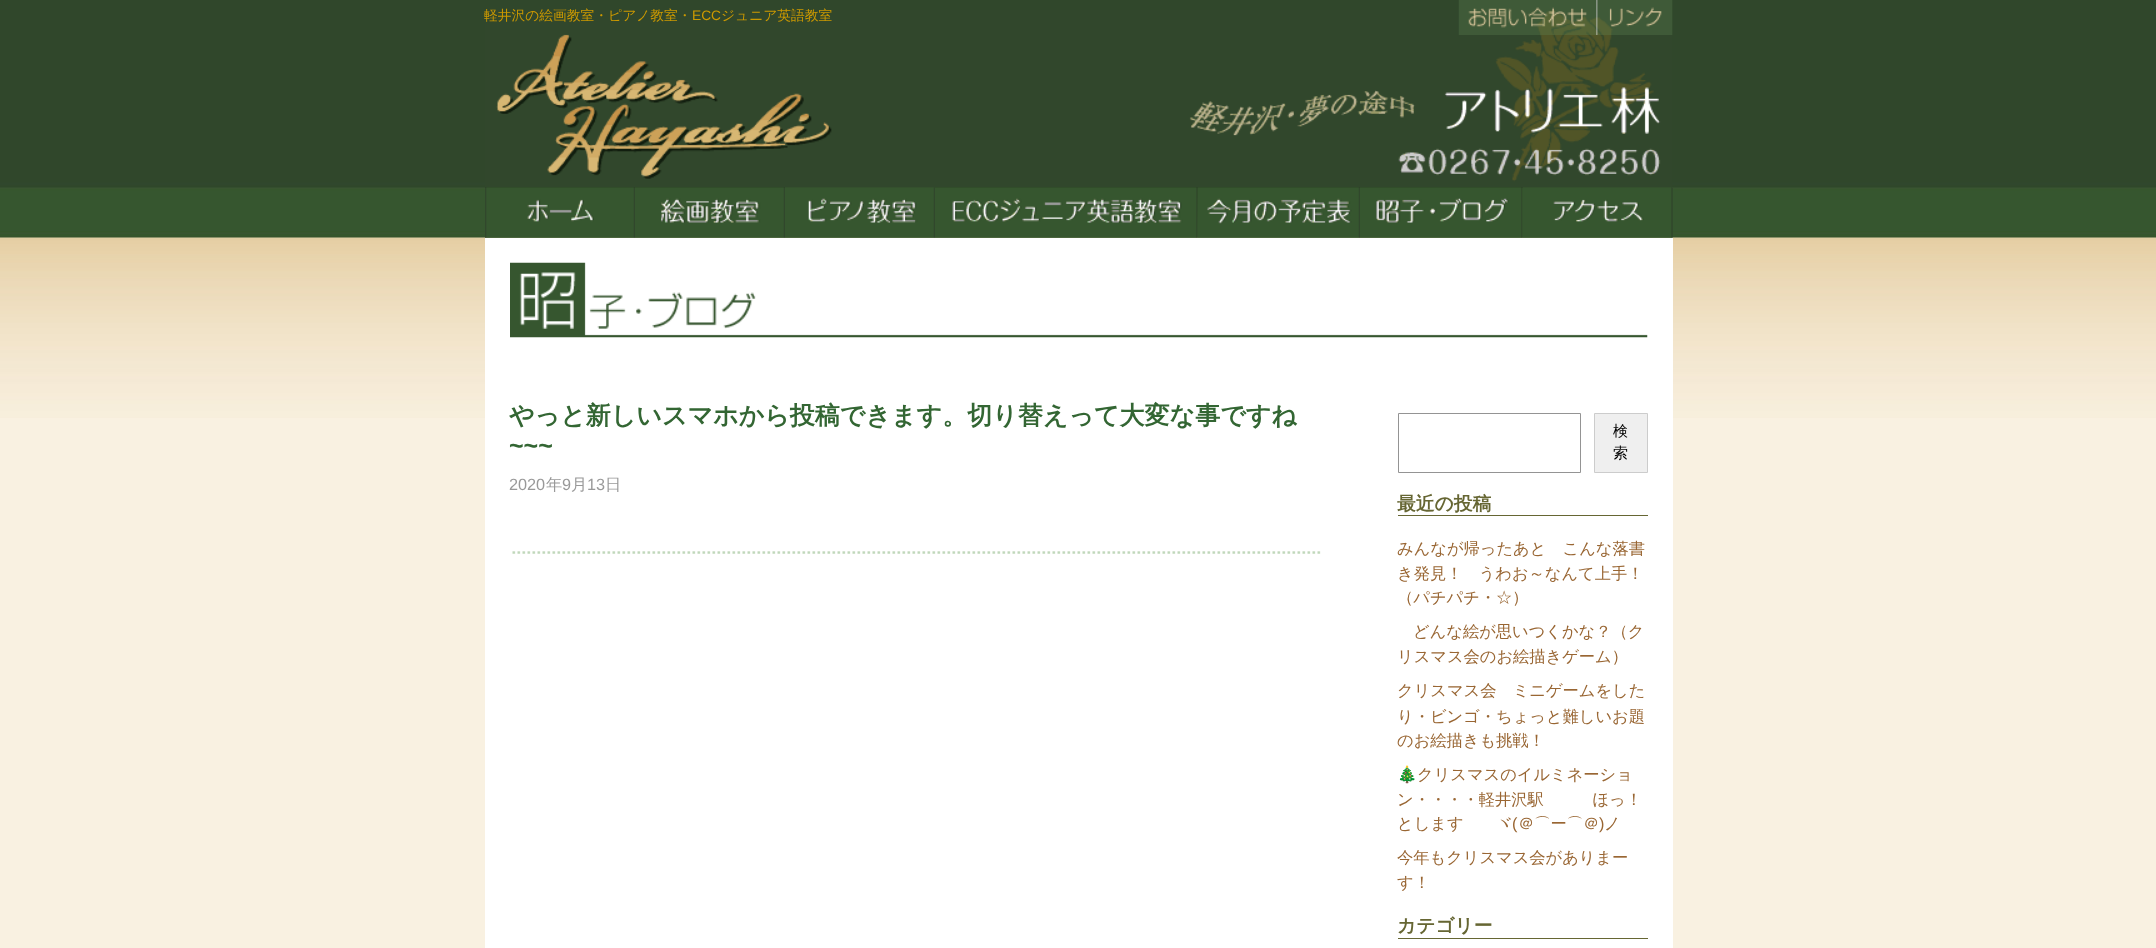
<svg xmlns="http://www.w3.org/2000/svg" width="2156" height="948">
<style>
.a{font:500 13.75px WenQuanYi Zen Hei;fill:#c90}
.b{font:13.75px Liberation Sans;fill:#c90}
.c{font:bold 25px WenQuanYi Zen Hei;fill:#363}
.d{font:bold 25px Liberation Sans;fill:#363}
.e{font:16.25px Liberation Sans;fill:#999}
.f{font:500 16.25px WenQuanYi Zen Hei;fill:#999}
.g{font:500 15px WenQuanYi Zen Hei;fill:#000}
.h{font:bold 18.75px WenQuanYi Zen Hei;fill:#663}
.i{font:500 16.25px WenQuanYi Zen Hei;fill:#963}
.j{font:16.25px Noto Color Emoji;fill:#963}
.k{font:16.25px Liberation Sans;fill:#963}
</style>
<rect width="100%" height="100%" fill="#f9f1e1"/>
<image href="1.png" x="0" y="0" width="2156" height="418"/>
<image href="2.png" x="485" y="10" width="1187" height="178"/>
<image href="3.png" x="1596" y="0" width="1" height="35"/>
<image href="4.png" x="1458" y="0" width="139" height="35"/>
<image href="5.png" x="1596" y="0" width="77" height="35"/>
<image href="6.png" x="1596" y="0" width="77" height="35"/>
<image href="7.png" x="485" y="187" width="150" height="51"/>
<image href="8.png" x="485" y="187" width="150" height="51"/>
<image href="9.png" x="635" y="187" width="150" height="51"/>
<image href="10.png" x="635" y="187" width="150" height="51"/>
<image href="11.png" x="785" y="187" width="150" height="51"/>
<image href="12.png" x="785" y="237" width="150" height="1"/>
<image href="13.png" x="935" y="187" width="263" height="51"/>
<image href="14.png" x="935" y="187" width="263" height="51"/>
<image href="15.png" x="1197" y="187" width="163" height="51"/>
<image href="16.png" x="1197" y="187" width="163" height="51"/>
<image href="17.png" x="1360" y="187" width="163" height="51"/>
<image href="18.png" x="1360" y="187" width="163" height="51"/>
<image href="19.png" x="1522" y="187" width="151" height="51"/>
<image href="20.png" x="1522" y="188" width="151" height="50"/>
<path fill="#fff" d="M485 238h1188v710H485z"/>
<image href="21.png" x="510" y="262" width="1138" height="76"/>
<image href="22.png" x="512" y="551" width="809" height="3"/>
<path fill="none" stroke="#949494" d="M1398.5 413.5h182v59H1398.5z"/>
<path fill="#efefef" stroke="#ccc" d="M1594.5 413.5h53v59H1594.5z"/>
<path fill="#663" d="M1398 515h250v1H1398z"/>
<path fill="#663" d="M1398 938h250v1H1398z"/>
<text class="a" x="484" y="20">軽井沢の絵画教室・ピアノ教室・</text>
<text class="b" x="692" y="20">ECC</text>
<text class="a" x="721" y="20">ジュニア英語教室</text>
<text class="c" x="509" y="424">やっと新しいスマホから投稿できます。切り替えって大変な事ですね</text>
<text class="d" x="509" y="454">~~~</text>
<text class="e" x="509" y="490">2020</text>
<text class="f" x="546" y="490">年</text>
<text class="e" x="562" y="490">9</text>
<text class="f" x="571" y="490">月</text>
<text class="e" x="587" y="490">13</text>
<text class="f" x="605" y="490">日</text>
<text class="g" x="1613" y="436">検</text>
<text class="g" x="1613" y="458">索</text>
<text class="h" x="1397" y="510">最近の投稿</text>
<text class="i" x="1397" y="554">みんなが帰ったあと　こんな落書</text>
<text class="i" x="1397" y="579">き発見！　うわお～なんて上手！</text>
<text class="i" x="1397" y="603">（パチパチ・☆）</text>
<text class="i" x="1413" y="637">どんな絵が思いつくかな？（ク</text>
<text class="i" x="1397" y="662">リスマス会のお絵描きゲーム）</text>
<text class="i" x="1397" y="696">クリスマス会　ミニゲームをした</text>
<text class="i" x="1397" y="722">り・ビンゴ・ちょっと難しいお題</text>
<text class="i" x="1397" y="746">のお絵描きも挑戦！</text>
<text class="j" x="1397" y="780">🎄</text>
<text class="i" x="1417" y="780">クリスマスのイルミネーショ</text>
<text class="i" x="1397" y="805">ン・・・・軽井沢駅　　　ほっ！</text>
<text class="i" x="1397" y="829">とします　　ヾ</text>
<text class="k" x="1512" y="829">(</text>
<text class="i" x="1518" y="829">＠⌒ー⌒＠</text>
<text class="k" x="1599" y="829">)</text>
<text class="i" x="1604" y="829">ノ</text>
<text class="i" x="1397" y="863">今年もクリスマス会がありまー</text>
<text class="i" x="1397" y="888">す！</text>
<text class="h" x="1397" y="932">カテゴリー</text>
</svg>
